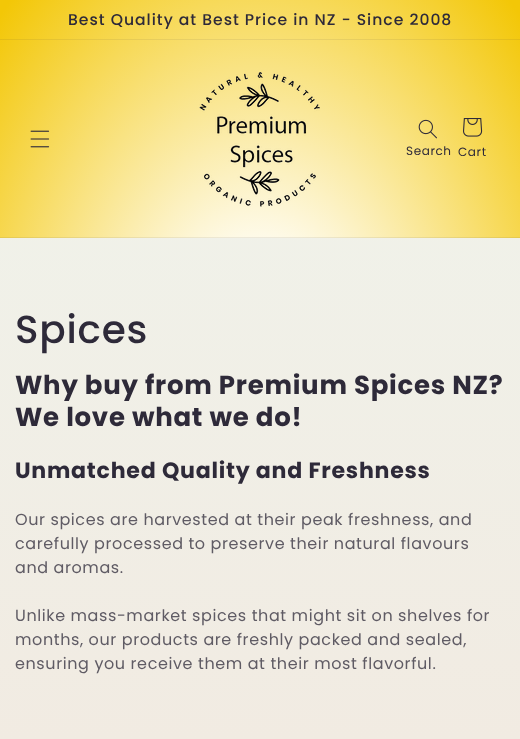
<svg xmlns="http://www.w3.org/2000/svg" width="520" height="739">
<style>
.a{font:500 15.6px Poppins;letter-spacing:1px;fill:#2e2a39}
.b{font:12px Poppins;letter-spacing:0.6px;fill:#2e2a39}
.c{font:500 39px Poppins;letter-spacing:0.75px;fill:#2e2a39}
.d{font:bold 26px Poppins;letter-spacing:0.75px;fill:#2e2a39}
.e{font:bold 22.1px Poppins;letter-spacing:0.75px;fill:#2e2a39}
.f{font:16px Poppins;letter-spacing:0.6px;fill:#5f5b64}
</style>
<defs>
<linearGradient id="g1" gradientUnits="userSpaceOnUse" x1="260" y1="0" x2="260" y2="739"><stop offset="0" stop-color="#f0f4ec"/><stop offset="1" stop-color="#f1ebe2"/></linearGradient>
<radialGradient id="g2" gradientUnits="userSpaceOnUse" cx="0" cy="0" r="1" gradientTransform="matrix(368 0 0 523 260 370)"><stop offset="0.18" stop-color="#fff"/><stop offset="0.98" stop-color="#f3c707"/></radialGradient>
<radialGradient id="g3" gradientUnits="userSpaceOnUse" cx="0" cy="0" r="1" gradientTransform="matrix(368 0 0 523 260 370)"><stop offset="0.18" stop-color="#eeeeef"/><stop offset="0.98" stop-color="#e3ba0b"/></radialGradient>
</defs>
<rect width="100%" height="100%" fill="#fff"/>
<path fill="url(#g1)" d="M0 238h520v501H0z"/>
<path fill="url(#g2)" d="M0 0h520v39H0z"/>
<path fill="url(#g3)" d="M0 39h520v1H0z"/>
<path fill="url(#g2)" d="M0 40h520v197H0z"/>
<path fill="url(#g3)" d="M0 237h520v1H0z"/>
<image href="1.png" x="30" y="130" width="20" height="18"/>
<image href="2.png" x="199" y="72" width="121" height="135"/>
<image href="3.png" x="418" y="119" width="19" height="20"/>
<image href="4.png" x="463" y="118" width="20" height="19"/>
<text class="a" x="68" y="25">Best Quality at Best Price in NZ - Since 2008</text>
<text class="b" x="406" y="155">Search</text>
<text class="b" x="458" y="156">Cart</text>
<text class="c" x="15" y="343">Spices</text>
<text class="d" x="15" y="394">Why buy from Premium Spices NZ?</text>
<text class="d" x="15" y="426">We love what we do!</text>
<text class="e" x="15" y="478">Unmatched Quality and Freshness</text>
<text class="f" x="15" y="525">Our spices are harvested at their peak freshness, and</text>
<text class="f" x="15" y="549">carefully processed to preserve their natural flavours</text>
<text class="f" x="15" y="573">and aromas.</text>
<text class="f" x="15" y="621">Unlike mass-market spices that might sit on shelves for</text>
<text class="f" x="15" y="645">months, our products are freshly packed and sealed,</text>
<text class="f" x="15" y="669">ensuring you receive them at their most flavorful.</text>
</svg>
